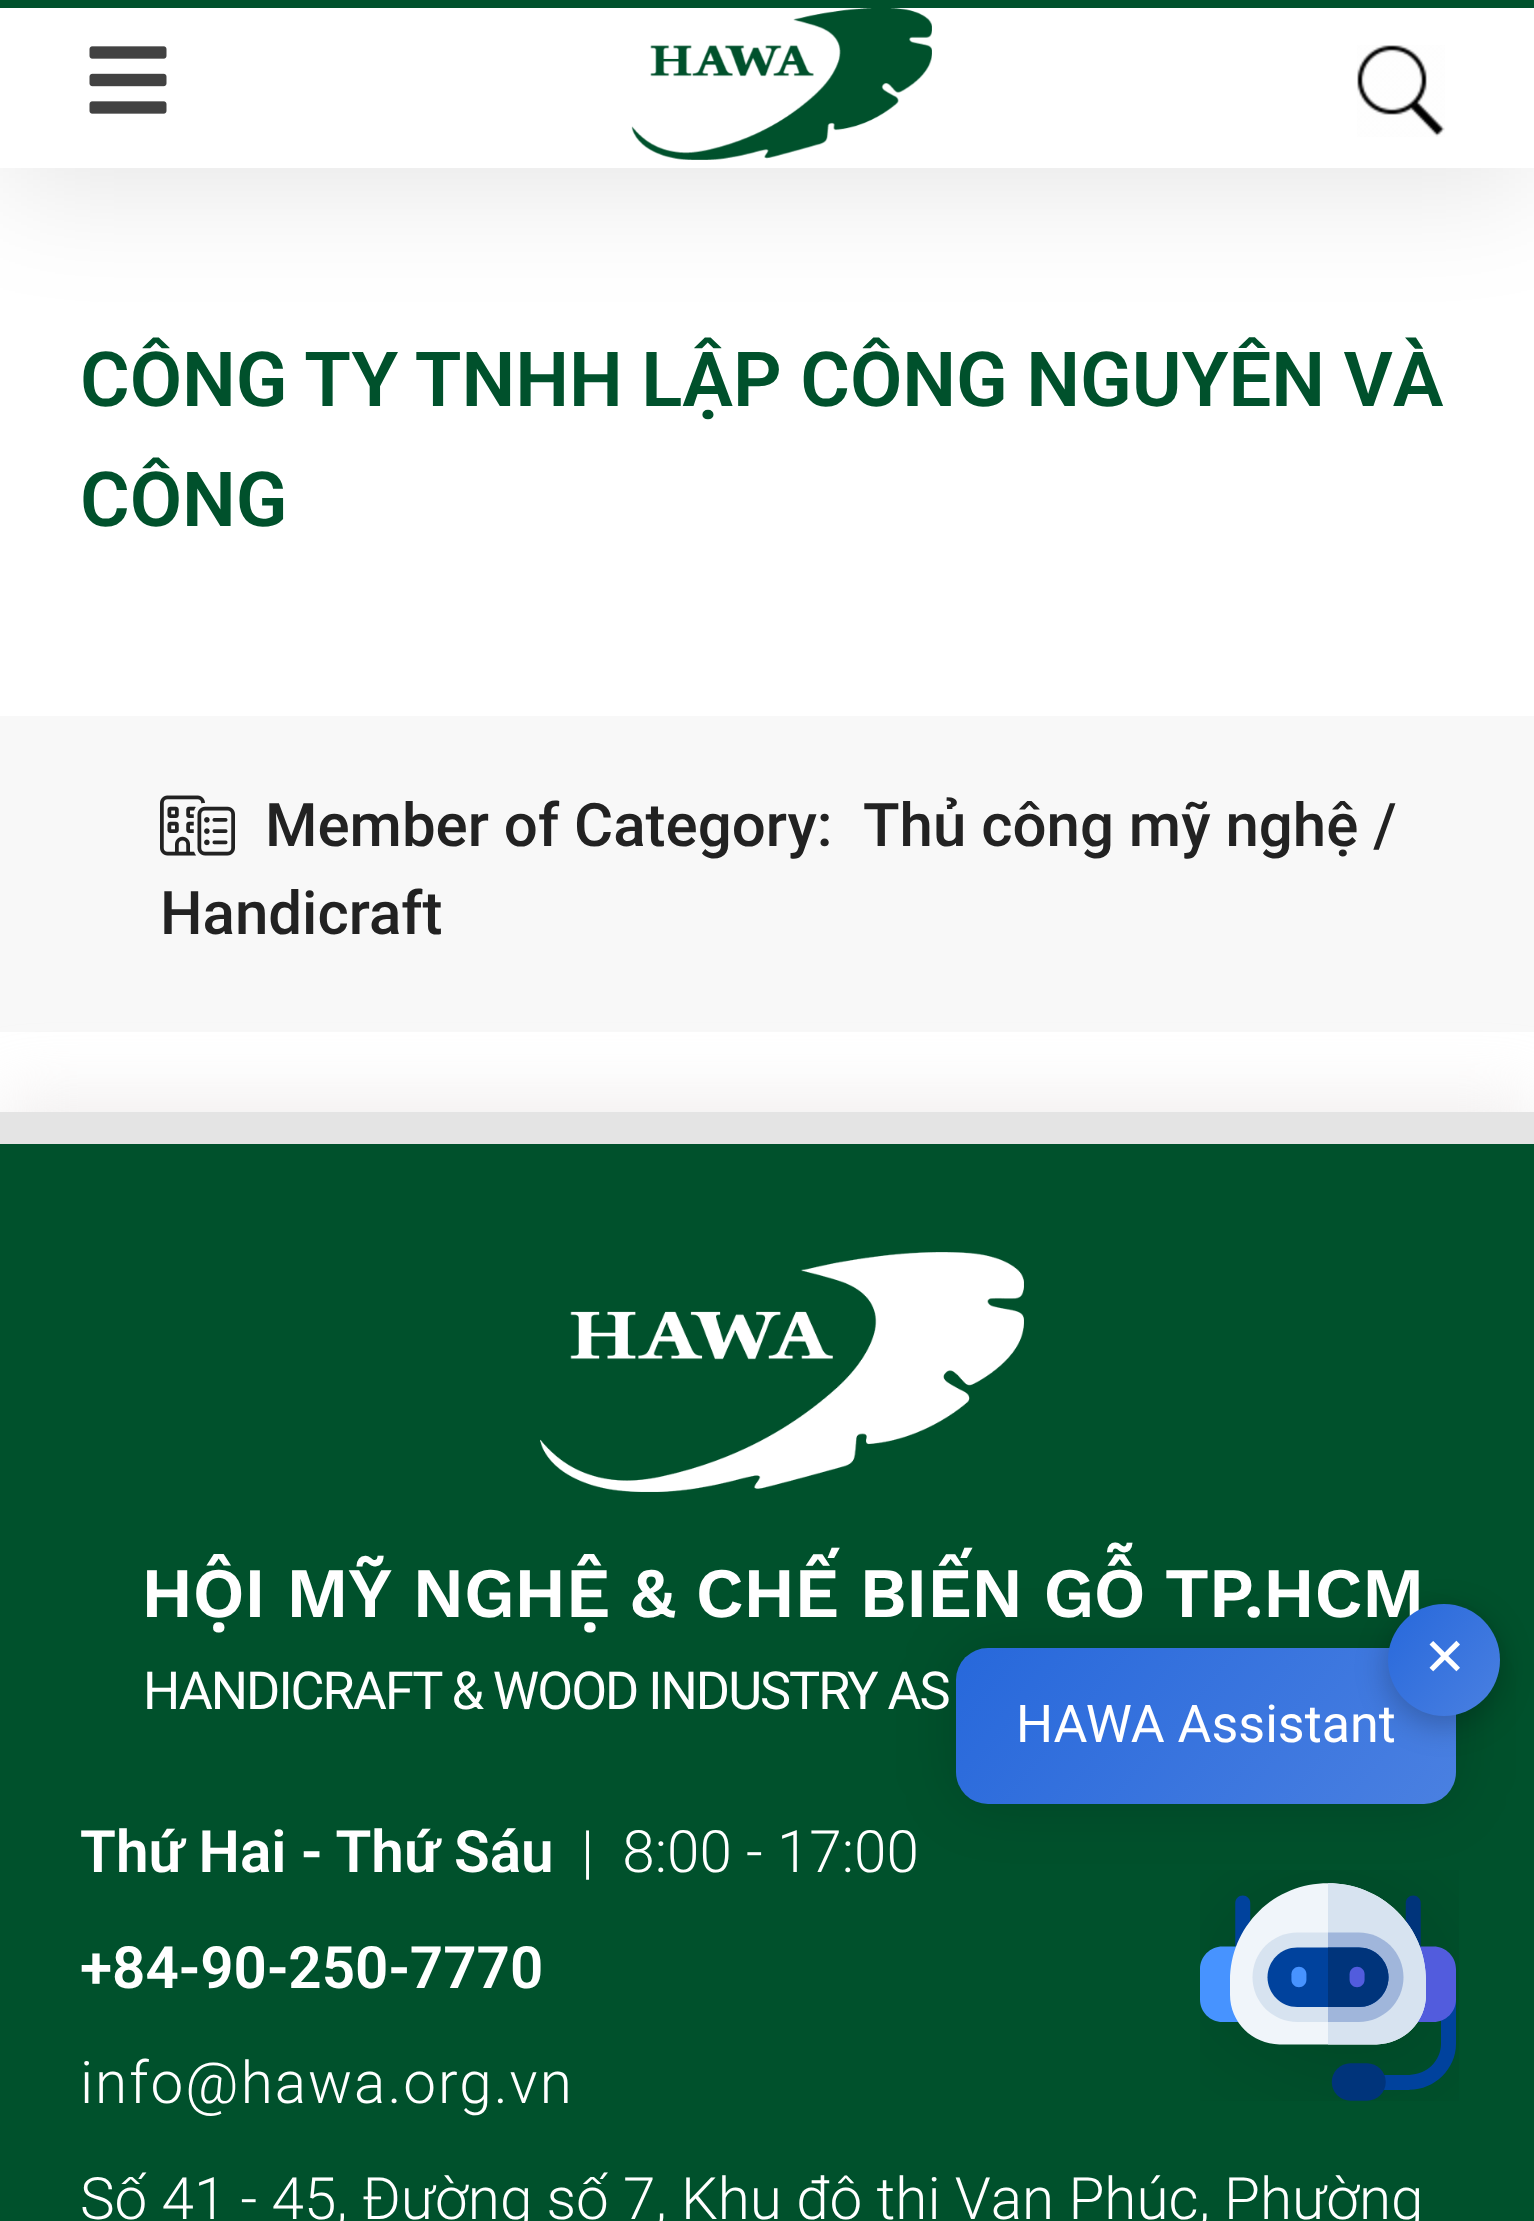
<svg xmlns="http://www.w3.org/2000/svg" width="1534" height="2221">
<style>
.a{font:600 76px Roboto;fill:#00512c}
.b{font:500 60px Roboto;fill:#222}
.c{font:600 70.7px Work Sans;letter-spacing:-0.8px;fill:#fff}
.d{font:52.25px Roboto;letter-spacing:-2px;fill:#fff}
.e{font:600 58.4px Roboto;fill:#fff}
.f{font:300 58.4px Roboto;fill:#fff}
.g{font:300 58.4px Roboto;letter-spacing:2px;fill:#fff}
.h{font:52px Roboto;fill:#fff}
.i{font:52px DejaVu Sans;fill:#fff}
</style>
<defs>
<linearGradient id="g1" gradientUnits="userSpaceOnUse" x1="1021" y1="1571" x2="1391" y2="1881"><stop offset="0" stop-color="#2768db"/><stop offset="1" stop-color="#4a80e1"/></linearGradient>
<linearGradient id="g2" gradientUnits="userSpaceOnUse" x1="1384" y1="1608" x2="1505" y2="1710"><stop offset="0" stop-color="#2768db"/><stop offset="1" stop-color="#4a80e1"/></linearGradient>
</defs>
<rect width="100%" height="100%" fill="#fff"/>
<path fill="#0000001a" filter="blur(60px)" d="M0 20h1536v168H0z"/>
<path fill="#fff" d="M0 8h1534v160H0z"/>
<path fill="#00512c" d="M0 0h1534v8H0z"/>
<image href="1.png" x="89" y="46" width="78" height="68"/>
<image href="2.png" x="631" y="8" width="301" height="152"/>
<image href="3.png" x="1357" y="45" width="88" height="92"/>
<path fill="#f8f8f8" d="M0 716h1534v316H0z"/>
<image href="4.png" x="160" y="795" width="75" height="61"/>
<path fill="#e2dcdc80" filter="blur(34px)" d="M0 1100h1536v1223H0z"/>
<path fill="#00512c" d="M0 1144h1534v1077H0z"/>
<path fill="#e4e4e4" d="M0 1112h1534v32H0z"/>
<image href="5.png" x="540" y="1252" width="484" height="240"/>
<image href="6.png" x="1200" y="1870" width="259" height="231"/>
<rect fill="#00000026" filter="blur(30px)" x="956" y="1648" width="500" height="156" rx="32"/>
<rect fill="url(#g1)" x="956" y="1648" width="500" height="156" rx="32"/>
<rect fill="#00000040" filter="blur(16px)" x="1388" y="1612" width="112" height="112" rx="56"/>
<text class="a" x="80" y="406" word-spacing="-0.5">CÔNG TY TNHH LẬP CÔNG NGUYÊN VÀ</text>
<text class="a" x="80" y="526">CÔNG</text>
<text class="b" x="265" y="846">Member of Category:</text>
<text class="b" x="863" y="846">Thủ công mỹ nghệ /</text>
<text class="b" x="160" y="934">Handicraft</text>
<text class="c" x="141" y="1617">HỘI MỸ NGHỆ &amp; CHẾ BIẾN GỖ TP.HCM</text>
<text class="d" x="143" y="1709">HANDICRAFT &amp; WOOD INDUSTRY AS</text>
<text class="e" x="80" y="1872">Thứ Hai - Thứ Sáu</text>
<text class="f" xml:space="preserve" x="581" y="1872">|  8:00 - 17:00</text>
<text class="e" x="80" y="1988">+84-90-250-7770</text>
<text class="g" x="80" y="2103">info@hawa.org.vn</text>
<text class="f" x="80" y="2219">Số 41 - 45, Đường số 7, Khu đô thị Vạn Phúc, Phường</text>
<text class="h" x="1016" y="1742">HAWA Assistant</text>
<circle fill="url(#g2)" cx="1444" cy="1660" r="56"/>
<text class="i" x="1423" y="1675">✕</text>
</svg>
